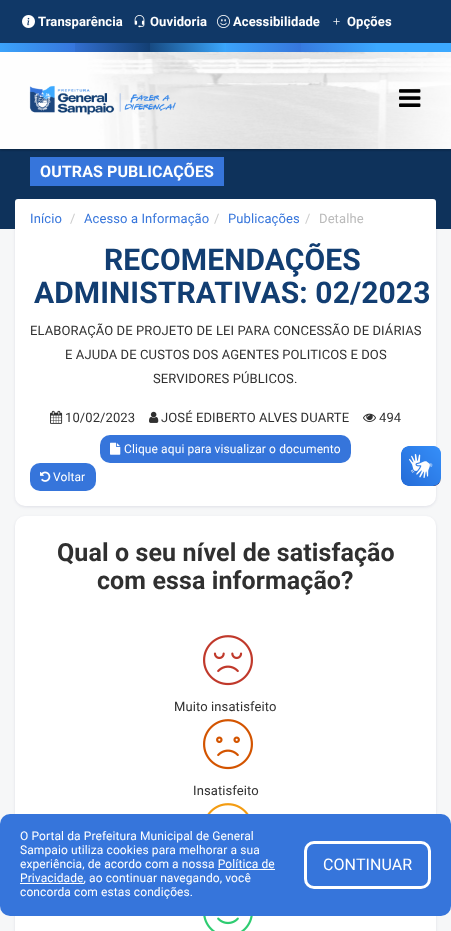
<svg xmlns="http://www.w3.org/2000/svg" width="451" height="931">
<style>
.a{font:bold 13px Roboto;letter-spacing:0.1px;fill:#fff}
.b{font:bold 16px Roboto;letter-spacing:0.1px;fill:#fff}
.c{font:13px Roboto;letter-spacing:0.1px;fill:#3675db}
.d{font:13px Roboto;letter-spacing:0.1px;fill:#ccc}
.e{font:13px Roboto;letter-spacing:0.1px;fill:#bbb}
.f{font:bold 30px Roboto;letter-spacing:0.1px;fill:#123e72}
.g{font:13px Roboto;letter-spacing:0.1px;fill:#303030}
.h{font:12px Roboto;letter-spacing:0.1px;fill:#fff}
.i{font:bold 25px Roboto;letter-spacing:0.1px;fill:#303030}
.j{font:16px Roboto;letter-spacing:0.1px;fill:#fff}
</style>
<rect width="100%" height="100%" fill="#f6f7f8"/>
<rect fill="#03004717" filter="blur(1.5px)" x="15" y="200" width="421" height="307" rx="10"/>
<rect fill="#fff" x="15" y="199" width="421" height="307" rx="10"/>
<path fill="#0e325b" d="M0 149h451v80H0z"/>
<path fill="#0000004d" filter="blur(1px)" d="M0 1h451v149H0z"/>
<image href="1.png" x="0" y="52" width="451" height="97"/>
<path fill="#103867" d="M0 0h451v43H0z"/>
<image href="2.png" x="22" y="15" width="13" height="13"/>
<image href="3.png" x="134" y="15" width="11" height="13"/>
<image href="4.png" x="217" y="15" width="13" height="13"/>
<image href="5.png" x="333" y="18" width="7" height="7"/>
<image href="6.png" x="0" y="43" width="75" height="9"/>
<image href="7.png" x="75" y="43" width="75" height="9"/>
<image href="8.png" x="150" y="43" width="76" height="9"/>
<image href="9.png" x="226" y="43" width="75" height="9"/>
<image href="10.png" x="301" y="43" width="75" height="9"/>
<path fill="#3ca9ff" d="M376 43h75v9H376z"/>
<image href="11.png" x="29" y="85" width="147" height="30"/>
<image href="12.png" x="399" y="89" width="22" height="18"/>
<path fill="#3675db" d="M30 157h194v29H30z"/>
<rect fill="#fff" x="15" y="199" width="421" height="40" rx="3"/>
<image href="13.png" x="50" y="410" width="13" height="14"/>
<image href="14.png" x="149" y="411" width="10" height="12"/>
<image href="15.png" x="363" y="413" width="13" height="9"/>
<rect fill="#3675db" x="100" y="435" width="251" height="28" rx="10"/>
<image href="16.png" x="110" y="442" width="11" height="13"/>
<rect fill="#3675db" x="30" y="463" width="66" height="28" rx="10"/>
<image href="17.png" x="40" y="471" width="11" height="11"/>
<image href="18.png" x="401" y="446" width="40" height="40"/>
<image href="19.png" x="401" y="446" width="40" height="40"/>
<rect fill="#03004717" filter="blur(1.5px)" x="15" y="517" width="421" height="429" rx="10"/>
<rect fill="#fff" x="15" y="516" width="421" height="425" rx="10"/>
<image href="20.png" x="203" y="635" width="50" height="51"/>
<image href="21.png" x="203" y="719" width="50" height="51"/>
<image href="22.png" x="207" y="803" width="42" height="11"/>
<image href="23.png" x="203" y="916" width="50" height="15"/>
<rect fill="#3675db" y="814" width="451" height="102" rx="10"/>
<path fill="#fff" d="M218 869h57v1H218z"/>
<path fill="#fff" d="M20 883h64v1H20z"/>
<rect fill="none" stroke="#fff" stroke-width="3" x="305.5" y="842.5" width="124" height="45" rx="8.5"/>
<text class="a" x="38" y="26">Transparência</text>
<text class="a" x="150" y="26">Ouvidoria</text>
<text class="a" x="233" y="26">Acessibilidade</text>
<text class="a" x="347" y="26">Opções</text>
<text class="b" x="40" y="177">OUTRAS PUBLICAÇÕES</text>
<text class="c" x="30" y="223">Início</text>
<text class="d" x="70" y="223">/</text>
<text class="c" x="84" y="223">Acesso a Informação</text>
<text class="d" x="214" y="223">/</text>
<text class="c" x="228" y="223">Publicações</text>
<text class="d" x="305" y="223">/</text>
<text class="e" x="319" y="223">Detalhe</text>
<text class="f" x="104" y="270">RECOMENDAÇÕES</text>
<text class="f" x="34" y="303">ADMINISTRATIVAS: 02/2023</text>
<text class="g" x="30" y="335">ELABORAÇÃO DE PROJETO DE LEI PARA CONCESSÃO DE DIÁRIAS</text>
<text class="g" x="65" y="359">E AJUDA DE CUSTOS DOS AGENTES POLITICOS E DOS</text>
<text class="g" x="153" y="383">SERVIDORES PÚBLICOS.</text>
<text class="g" x="65" y="422">10/02/2023</text>
<text class="g" x="161" y="422">JOSÉ EDIBERTO ALVES DUARTE</text>
<text class="g" x="379" y="422">494</text>
<text class="h" x="124" y="453">Clique aqui para visualizar o documento</text>
<text class="h" x="53" y="481">Voltar</text>
<text class="i" x="57" y="561">Qual o seu nível de satisfação</text>
<text class="i" x="97" y="589">com essa informação?</text>
<text class="g" x="174" y="711">Muito insatisfeito</text>
<text class="g" x="193" y="795">Insatisfeito</text>
<text class="h" x="20" y="840">O Portal da Prefeitura Municipal de General</text>
<text class="h" x="20" y="854">Sampaio utiliza cookies para melhorar a sua</text>
<text class="h" x="20" y="868">experiência, de acordo com a nossa Política de</text>
<text class="h" x="20" y="882">Privacidade, ao continuar navegando, você</text>
<text class="h" x="20" y="896">concorda com estas condições.</text>
<text class="j" x="323" y="870">CONTINUAR</text>
</svg>
